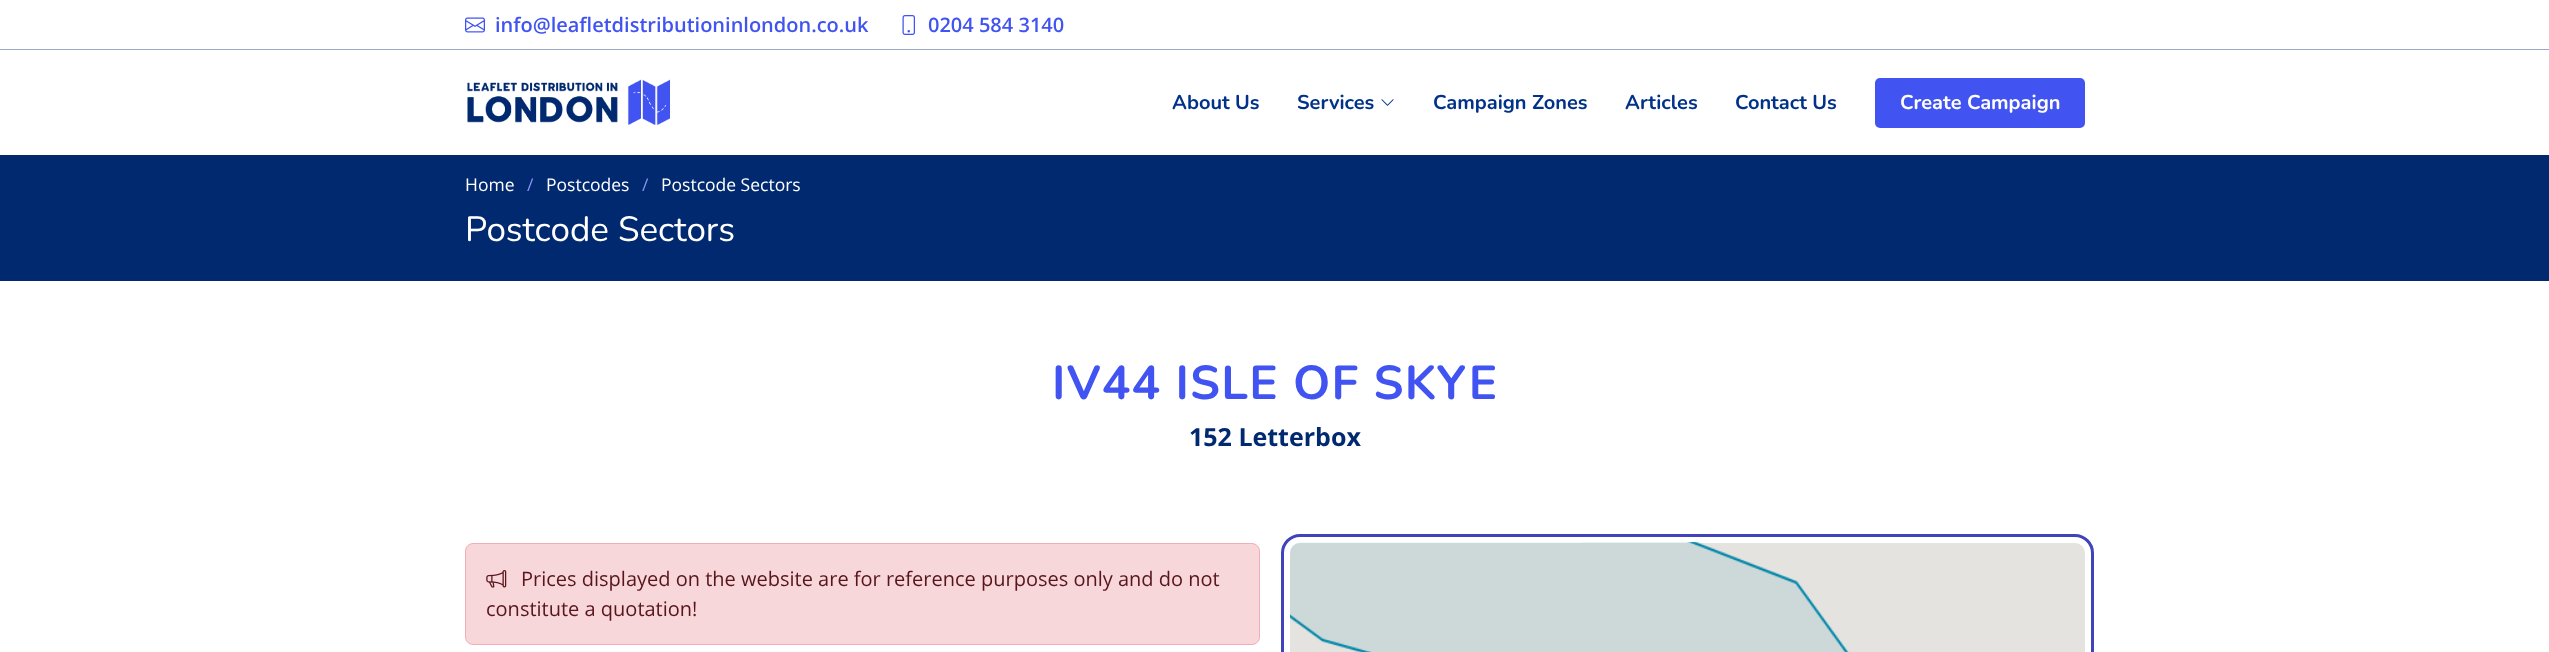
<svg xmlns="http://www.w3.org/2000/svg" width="2549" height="652">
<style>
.a{font:600 20px Open Sans;fill:#4154f1}
.b{font:bold 20px Nunito;fill:#013289}
.c{font:bold 20px Nunito;fill:#fff}
.d{font:17.5px Open Sans;fill:#fff}
.e{font:17.5px Open Sans;fill:#8894f6}
.f{font:35px Nunito;fill:#fff}
.g{font:bold 47.5px Nunito;letter-spacing:1.25px;fill:#4154f1}
.h{font:bold 25px Open Sans;fill:#012970}
.i{font:20px Open Sans;fill:#58151c}
</style>
<rect width="100%" height="100%" fill="#fff"/>
<path fill="#99a9c6" d="M0 49h2549v1H0z"/>
<image href="1.png" x="465" y="17" width="20" height="16"/>
<image href="2.png" x="902" y="15" width="13" height="20"/>
<image href="3.png" x="467" y="79" width="203" height="46"/>
<image href="4.png" x="1381" y="99" width="13" height="7"/>
<rect fill="#4154f1" x="1875" y="78" width="210" height="50" rx="5"/>
<path fill="#012970" d="M0 155h2549v126H0z"/>
<rect fill="#f8d7da" stroke="#f1aeb5" x="465.5" y="543.5" width="794" height="101" rx="7.5"/>
<image href="5.png" x="486" y="570" width="21" height="18"/>
<rect fill="none" stroke="#4043bc" stroke-width="3" x="1282.5" y="535.5" width="810" height="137" rx="17.5"/>
<rect fill="#e5e3df" x="1290" y="543" width="795" height="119" rx="10"/>
<image href="6.png" x="1290" y="542" width="293" height="110"/>
<image href="7.png" x="1582" y="542" width="267" height="110"/>
<text class="a" x="495" y="32">info@leafletdistributioninlondon.co.uk</text>
<text class="a" x="928" y="32">0204 584 3140</text>
<text class="b" x="1172" y="109">About Us</text>
<text class="b" x="1297" y="109">Services</text>
<text class="b" x="1433" y="109">Campaign Zones</text>
<text class="b" x="1625" y="109">Articles</text>
<text class="b" x="1735" y="109">Contact Us</text>
<text class="c" x="1900" y="109">Create Campaign</text>
<text class="d" x="465" y="191">Home</text>
<text class="e" x="527" y="191">/</text>
<text class="d" x="546" y="191">Postcodes</text>
<text class="e" x="642" y="191">/</text>
<text class="d" x="661" y="191">Postcode Sectors</text>
<text class="f" x="465" y="241">Postcode Sectors</text>
<text class="g" x="1052" y="399">IV44 ISLE OF SKYE</text>
<text class="h" x="1189" y="446">152 Letterbox</text>
<text class="i" x="521" y="586">Prices displayed on the website are for reference purposes only and do not</text>
<text class="i" x="486" y="616">constitute a quotation!</text>
</svg>
